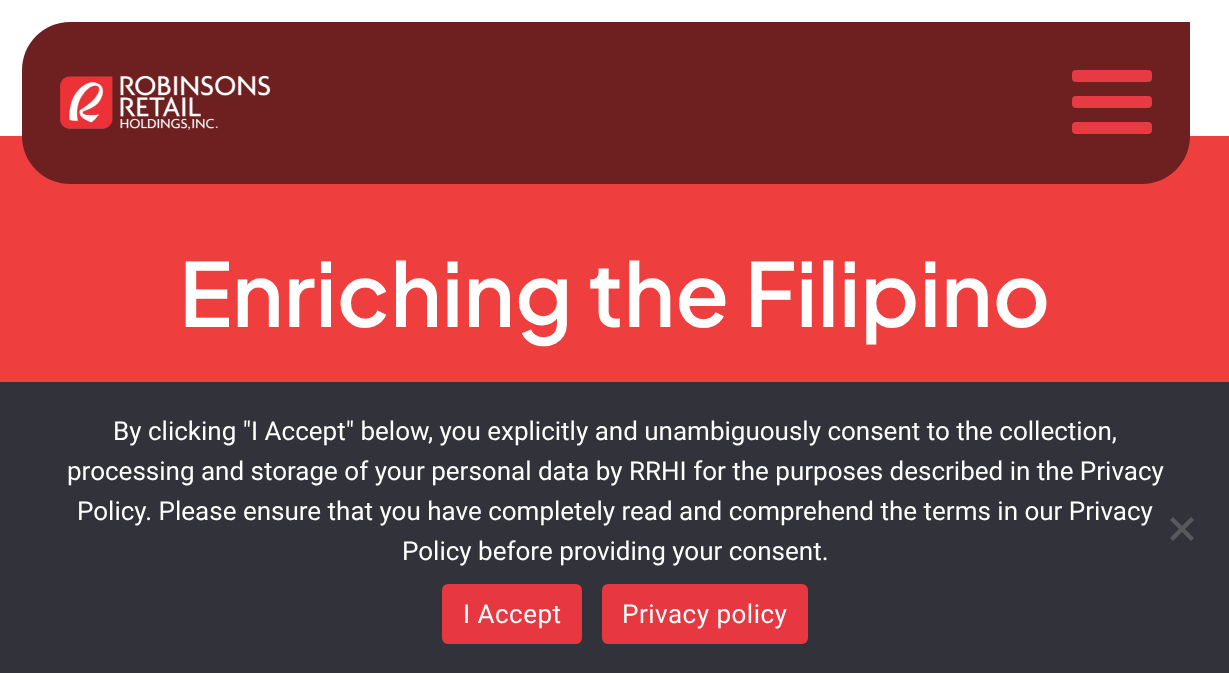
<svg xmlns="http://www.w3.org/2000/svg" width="1229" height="673">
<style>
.a{font:600 88px Plus Jakarta Sans;fill:#fff}
.b{font:26px Roboto;fill:#fff}
.c{font:26px Roboto;letter-spacing:0.5px;fill:#fff}
</style>
<rect width="100%" height="100%" fill="#fff"/>
<path fill="#ee3f3e" d="M0 136h1229v246H0z"/>
<path fill="#6e2020" d="M70 22h1120v114c0 26.5-21.5 48-48 48h-1072c-26.5 0-48-21.5-48-48v-66c0-26.5 21.5-48 48-48z"/>
<image href="1.png" x="60" y="75" width="211" height="55"/>
<rect fill="#e83a42" x="1072" y="70" width="80" height="12" rx="4"/>
<rect fill="#e83a42" x="1072" y="96" width="80" height="12" rx="4"/>
<rect fill="#e83a42" x="1072" y="122" width="80" height="12" rx="4"/>
<path fill="#32323a" d="M0 382h1229v291H0z"/>
<path fill="#59595d" d="M1191 517l3 3l-21 21l-3-3z"/>
<path fill="#59595d" d="M1170 520l3-3l21 21l-3 3z"/>
<rect fill="#e73842" x="442" y="584" width="140" height="60" rx="6"/>
<rect fill="#e73842" x="602" y="584" width="206" height="60" rx="6"/>
<text class="a" x="179" y="327">Enriching the Filipino</text>
<text class="b" x="113" y="440">By clicking "I Accept" below, you explicitly and unambiguously consent to the collection,</text>
<text class="b" x="67" y="480">processing and storage of your personal data by RRHI for the purposes described in the Privacy</text>
<text class="b" x="77" y="520">Policy. Please ensure that you have completely read and comprehend the terms in our Privacy</text>
<text class="b" x="402" y="560">Policy before providing your consent.</text>
<text class="c" x="463" y="623">I Accept</text>
<text class="c" x="622" y="623">Privacy policy</text>
</svg>
